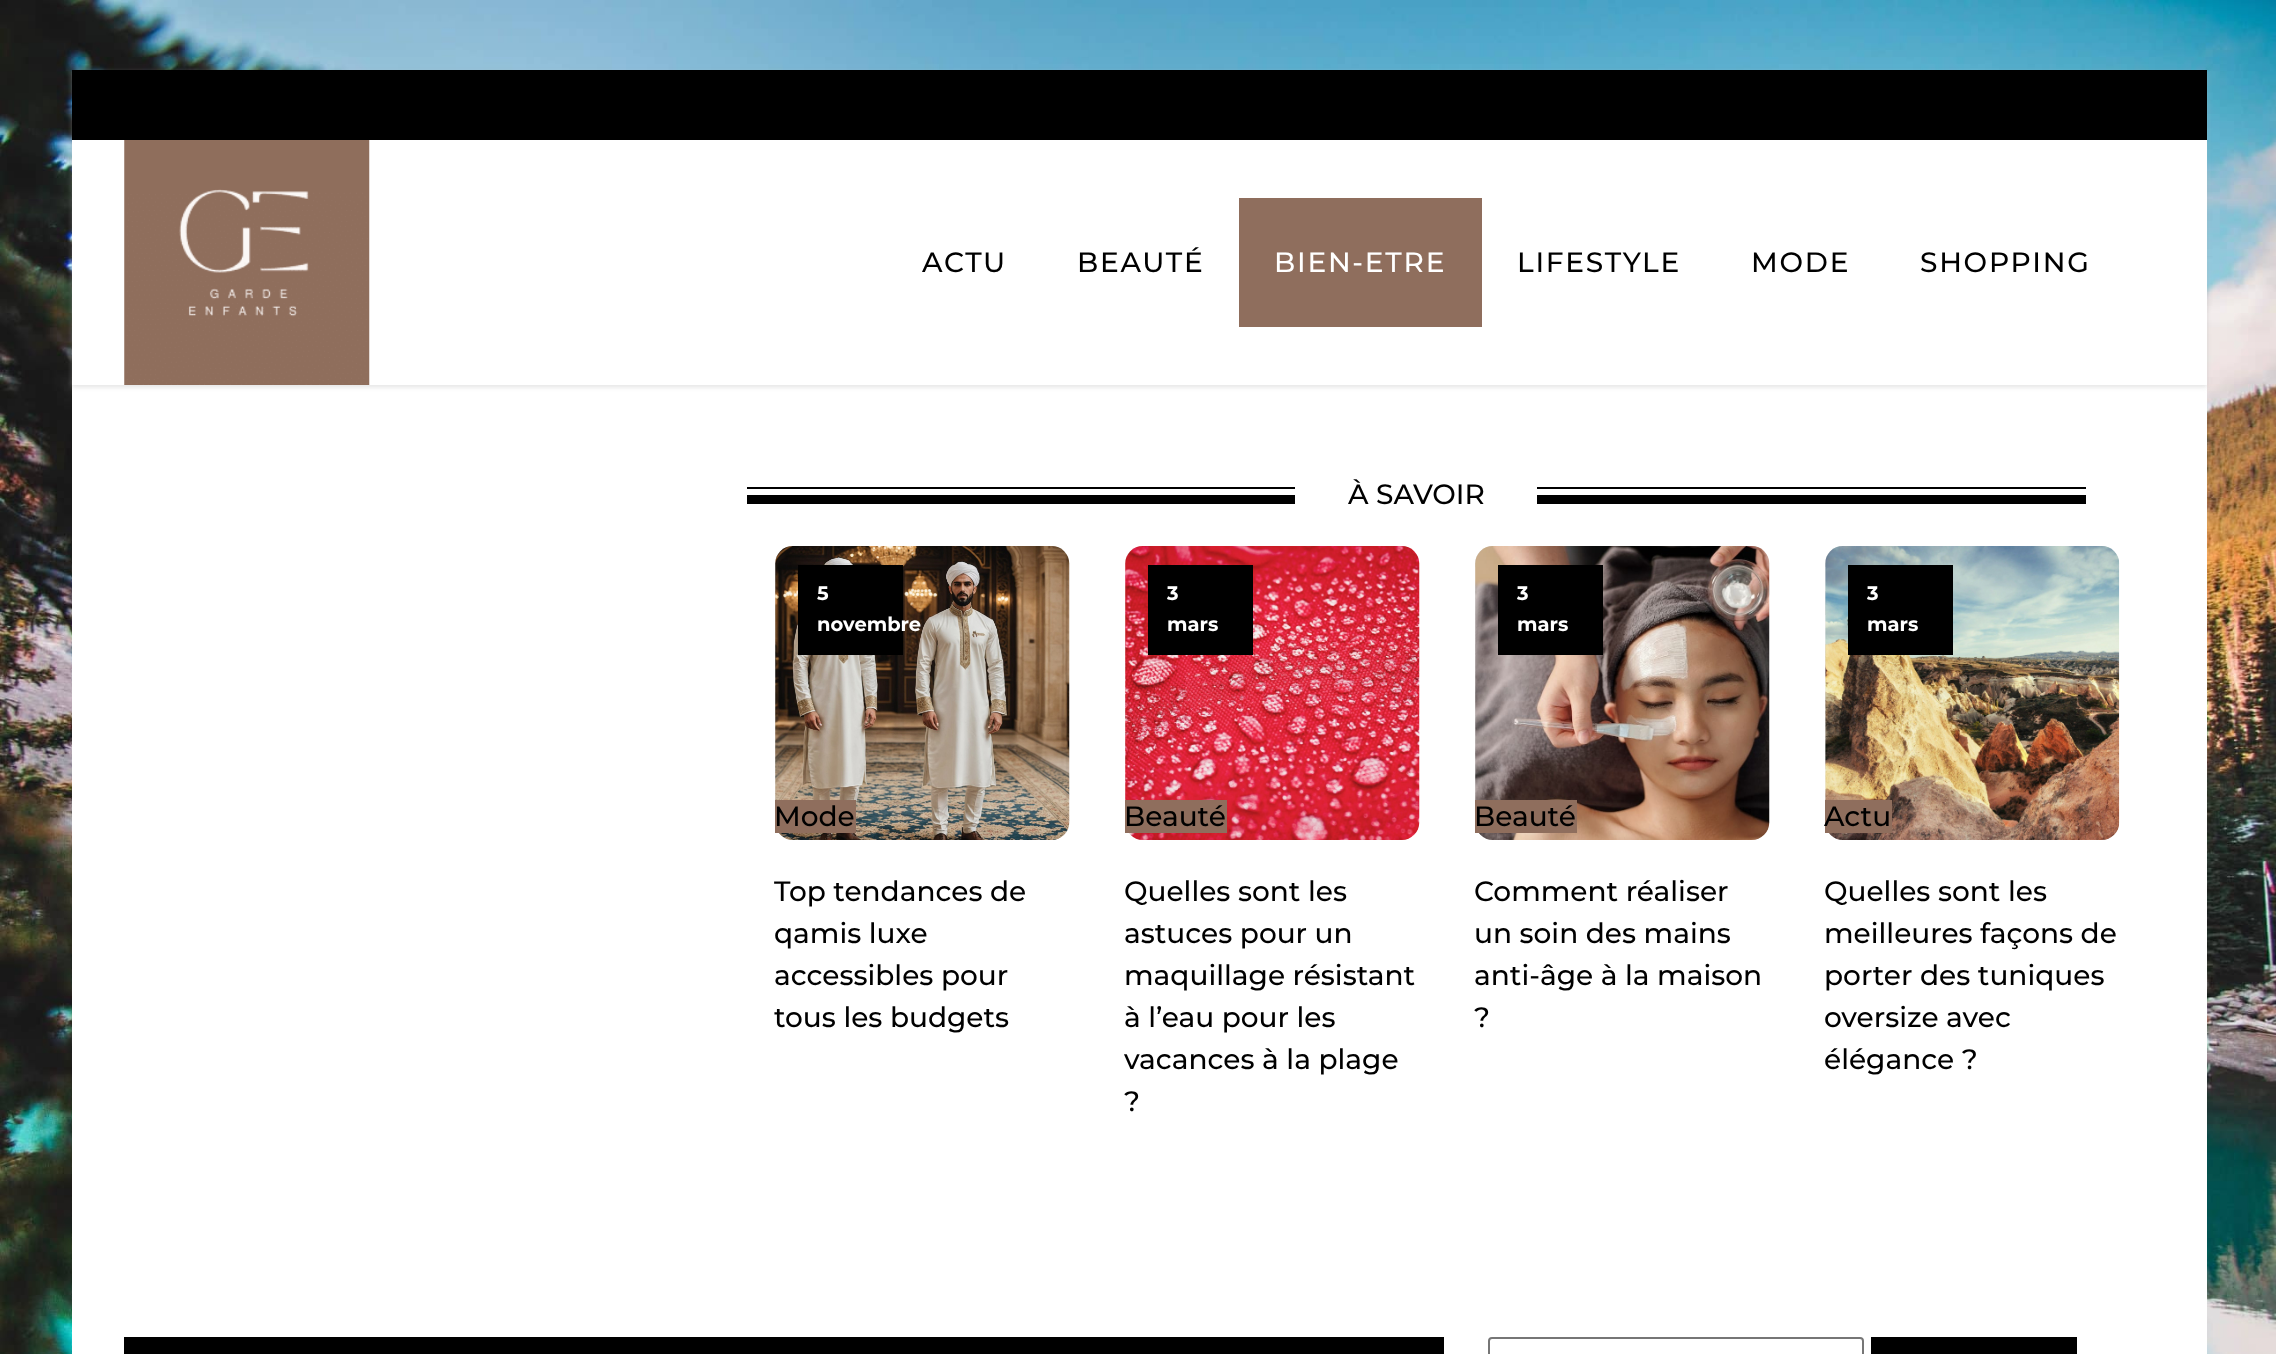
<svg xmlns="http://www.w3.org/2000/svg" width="2276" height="1354">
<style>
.a{font:500 28px Montserrat;letter-spacing:1.75px;fill:#000}
.b{font:500 28px Montserrat;letter-spacing:1.75px;fill:#fff}
.c{font:500 28px Montserrat;fill:#000}
.d{font:bold 19.5px Montserrat;fill:#fff}
</style>
<defs>
<clipPath id="clip1"><path d="M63 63h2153v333h-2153zm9 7h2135v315h-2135z" clip-rule="evenodd"/></clipPath>
<linearGradient id="g1" gradientUnits="userSpaceOnUse" x1="775" y1="840" x2="1072" y2="543"><stop offset="0" stop-color="#eee"/><stop offset="0.04" stop-color="#eee"/><stop offset="0.04" stop-color="#ddd"/><stop offset="0.08" stop-color="#ddd"/><stop offset="0.08" stop-color="#eee"/><stop offset="0.12" stop-color="#eee"/><stop offset="0.12" stop-color="#ddd"/><stop offset="0.17" stop-color="#ddd"/><stop offset="0.17" stop-color="#eee"/><stop offset="0.21" stop-color="#eee"/><stop offset="0.21" stop-color="#ddd"/><stop offset="0.25" stop-color="#ddd"/><stop offset="0.25" stop-color="#eee"/><stop offset="0.29" stop-color="#eee"/><stop offset="0.29" stop-color="#ddd"/><stop offset="0.33" stop-color="#ddd"/><stop offset="0.33" stop-color="#eee"/><stop offset="0.38" stop-color="#eee"/><stop offset="0.38" stop-color="#ddd"/><stop offset="0.42" stop-color="#ddd"/><stop offset="0.42" stop-color="#eee"/><stop offset="0.46" stop-color="#eee"/><stop offset="0.46" stop-color="#ddd"/><stop offset="0.5" stop-color="#ddd"/><stop offset="0.5" stop-color="#eee"/><stop offset="0.54" stop-color="#eee"/><stop offset="0.54" stop-color="#ddd"/><stop offset="0.58" stop-color="#ddd"/><stop offset="0.58" stop-color="#eee"/><stop offset="0.62" stop-color="#eee"/><stop offset="0.62" stop-color="#ddd"/><stop offset="0.67" stop-color="#ddd"/><stop offset="0.67" stop-color="#eee"/><stop offset="0.71" stop-color="#eee"/><stop offset="0.71" stop-color="#ddd"/><stop offset="0.75" stop-color="#ddd"/><stop offset="0.75" stop-color="#eee"/><stop offset="0.79" stop-color="#eee"/><stop offset="0.79" stop-color="#ddd"/><stop offset="0.83" stop-color="#ddd"/><stop offset="0.83" stop-color="#eee"/><stop offset="0.88" stop-color="#eee"/><stop offset="0.88" stop-color="#ddd"/><stop offset="0.92" stop-color="#ddd"/><stop offset="0.92" stop-color="#eee"/><stop offset="0.96" stop-color="#eee"/><stop offset="0.96" stop-color="#ddd"/><stop offset="1" stop-color="#ddd"/></linearGradient>
<linearGradient id="g2" gradientUnits="userSpaceOnUse" x1="1125" y1="840" x2="1422" y2="543"><stop offset="0" stop-color="#eee"/><stop offset="0.04" stop-color="#eee"/><stop offset="0.04" stop-color="#ddd"/><stop offset="0.08" stop-color="#ddd"/><stop offset="0.08" stop-color="#eee"/><stop offset="0.12" stop-color="#eee"/><stop offset="0.12" stop-color="#ddd"/><stop offset="0.17" stop-color="#ddd"/><stop offset="0.17" stop-color="#eee"/><stop offset="0.21" stop-color="#eee"/><stop offset="0.21" stop-color="#ddd"/><stop offset="0.25" stop-color="#ddd"/><stop offset="0.25" stop-color="#eee"/><stop offset="0.29" stop-color="#eee"/><stop offset="0.29" stop-color="#ddd"/><stop offset="0.33" stop-color="#ddd"/><stop offset="0.33" stop-color="#eee"/><stop offset="0.38" stop-color="#eee"/><stop offset="0.38" stop-color="#ddd"/><stop offset="0.42" stop-color="#ddd"/><stop offset="0.42" stop-color="#eee"/><stop offset="0.46" stop-color="#eee"/><stop offset="0.46" stop-color="#ddd"/><stop offset="0.5" stop-color="#ddd"/><stop offset="0.5" stop-color="#eee"/><stop offset="0.54" stop-color="#eee"/><stop offset="0.54" stop-color="#ddd"/><stop offset="0.58" stop-color="#ddd"/><stop offset="0.58" stop-color="#eee"/><stop offset="0.62" stop-color="#eee"/><stop offset="0.62" stop-color="#ddd"/><stop offset="0.67" stop-color="#ddd"/><stop offset="0.67" stop-color="#eee"/><stop offset="0.71" stop-color="#eee"/><stop offset="0.71" stop-color="#ddd"/><stop offset="0.75" stop-color="#ddd"/><stop offset="0.75" stop-color="#eee"/><stop offset="0.79" stop-color="#eee"/><stop offset="0.79" stop-color="#ddd"/><stop offset="0.83" stop-color="#ddd"/><stop offset="0.83" stop-color="#eee"/><stop offset="0.88" stop-color="#eee"/><stop offset="0.88" stop-color="#ddd"/><stop offset="0.92" stop-color="#ddd"/><stop offset="0.92" stop-color="#eee"/><stop offset="0.96" stop-color="#eee"/><stop offset="0.96" stop-color="#ddd"/><stop offset="1" stop-color="#ddd"/></linearGradient>
<linearGradient id="g3" gradientUnits="userSpaceOnUse" x1="1475" y1="840" x2="1772" y2="543"><stop offset="0" stop-color="#eee"/><stop offset="0.04" stop-color="#eee"/><stop offset="0.04" stop-color="#ddd"/><stop offset="0.08" stop-color="#ddd"/><stop offset="0.08" stop-color="#eee"/><stop offset="0.12" stop-color="#eee"/><stop offset="0.12" stop-color="#ddd"/><stop offset="0.17" stop-color="#ddd"/><stop offset="0.17" stop-color="#eee"/><stop offset="0.21" stop-color="#eee"/><stop offset="0.21" stop-color="#ddd"/><stop offset="0.25" stop-color="#ddd"/><stop offset="0.25" stop-color="#eee"/><stop offset="0.29" stop-color="#eee"/><stop offset="0.29" stop-color="#ddd"/><stop offset="0.33" stop-color="#ddd"/><stop offset="0.33" stop-color="#eee"/><stop offset="0.38" stop-color="#eee"/><stop offset="0.38" stop-color="#ddd"/><stop offset="0.42" stop-color="#ddd"/><stop offset="0.42" stop-color="#eee"/><stop offset="0.46" stop-color="#eee"/><stop offset="0.46" stop-color="#ddd"/><stop offset="0.5" stop-color="#ddd"/><stop offset="0.5" stop-color="#eee"/><stop offset="0.54" stop-color="#eee"/><stop offset="0.54" stop-color="#ddd"/><stop offset="0.58" stop-color="#ddd"/><stop offset="0.58" stop-color="#eee"/><stop offset="0.62" stop-color="#eee"/><stop offset="0.62" stop-color="#ddd"/><stop offset="0.67" stop-color="#ddd"/><stop offset="0.67" stop-color="#eee"/><stop offset="0.71" stop-color="#eee"/><stop offset="0.71" stop-color="#ddd"/><stop offset="0.75" stop-color="#ddd"/><stop offset="0.75" stop-color="#eee"/><stop offset="0.79" stop-color="#eee"/><stop offset="0.79" stop-color="#ddd"/><stop offset="0.83" stop-color="#ddd"/><stop offset="0.83" stop-color="#eee"/><stop offset="0.88" stop-color="#eee"/><stop offset="0.88" stop-color="#ddd"/><stop offset="0.92" stop-color="#ddd"/><stop offset="0.92" stop-color="#eee"/><stop offset="0.96" stop-color="#eee"/><stop offset="0.96" stop-color="#ddd"/><stop offset="1" stop-color="#ddd"/></linearGradient>
<linearGradient id="g4" gradientUnits="userSpaceOnUse" x1="1825" y1="840" x2="2122" y2="543"><stop offset="0" stop-color="#eee"/><stop offset="0.04" stop-color="#eee"/><stop offset="0.04" stop-color="#ddd"/><stop offset="0.08" stop-color="#ddd"/><stop offset="0.08" stop-color="#eee"/><stop offset="0.12" stop-color="#eee"/><stop offset="0.12" stop-color="#ddd"/><stop offset="0.17" stop-color="#ddd"/><stop offset="0.17" stop-color="#eee"/><stop offset="0.21" stop-color="#eee"/><stop offset="0.21" stop-color="#ddd"/><stop offset="0.25" stop-color="#ddd"/><stop offset="0.25" stop-color="#eee"/><stop offset="0.29" stop-color="#eee"/><stop offset="0.29" stop-color="#ddd"/><stop offset="0.33" stop-color="#ddd"/><stop offset="0.33" stop-color="#eee"/><stop offset="0.38" stop-color="#eee"/><stop offset="0.38" stop-color="#ddd"/><stop offset="0.42" stop-color="#ddd"/><stop offset="0.42" stop-color="#eee"/><stop offset="0.46" stop-color="#eee"/><stop offset="0.46" stop-color="#ddd"/><stop offset="0.5" stop-color="#ddd"/><stop offset="0.5" stop-color="#eee"/><stop offset="0.54" stop-color="#eee"/><stop offset="0.54" stop-color="#ddd"/><stop offset="0.58" stop-color="#ddd"/><stop offset="0.58" stop-color="#eee"/><stop offset="0.62" stop-color="#eee"/><stop offset="0.62" stop-color="#ddd"/><stop offset="0.67" stop-color="#ddd"/><stop offset="0.67" stop-color="#eee"/><stop offset="0.71" stop-color="#eee"/><stop offset="0.71" stop-color="#ddd"/><stop offset="0.75" stop-color="#ddd"/><stop offset="0.75" stop-color="#eee"/><stop offset="0.79" stop-color="#eee"/><stop offset="0.79" stop-color="#ddd"/><stop offset="0.83" stop-color="#ddd"/><stop offset="0.83" stop-color="#eee"/><stop offset="0.88" stop-color="#eee"/><stop offset="0.88" stop-color="#ddd"/><stop offset="0.92" stop-color="#ddd"/><stop offset="0.92" stop-color="#eee"/><stop offset="0.96" stop-color="#eee"/><stop offset="0.96" stop-color="#ddd"/><stop offset="1" stop-color="#ddd"/></linearGradient>
</defs>
<rect width="100%" height="100%" fill="#fff"/>
<image href="1.png" x="0" y="0" width="2276" height="1354"/>
<path fill="#fff" d="M72 140h2135v1214H72z"/>
<g clip-path="url(#clip1)">
<path fill="#b7b7b766" filter="blur(2.5px)" d="M72 72h2135v315H72z"/>
</g>
<path fill="#000" d="M72 70h2135v70H72z"/>
<image href="2.png" x="124" y="140" width="246" height="245"/>
<path fill="#8f6e5d" d="M1239 198h243v129H1239z"/>
<path fill="#000" d="M747 487h548v2H747z"/>
<path fill="#000" d="M747 495h548v9H747z"/>
<path fill="#000" d="M1537 487h549v2H1537z"/>
<path fill="#000" d="M1537 495h549v9H1537z"/>
<rect fill="url(#g1)" x="775" y="546" width="294" height="294" rx="18"/>
<image href="3.png" x="775" y="546" width="295" height="294"/>
<path fill="#000" d="M798 565h105v90H798z"/>
<path fill="#8f6e5d" d="M775 800h81v33H775z"/>
<rect fill="url(#g2)" x="1125" y="546" width="294" height="294" rx="18"/>
<image href="4.png" x="1125" y="546" width="295" height="294"/>
<path fill="#000" d="M1148 565h105v90H1148z"/>
<path fill="#8f6e5d" d="M1125 800h102v33H1125z"/>
<rect fill="url(#g3)" x="1475" y="546" width="294" height="294" rx="18"/>
<image href="5.png" x="1475" y="546" width="295" height="294"/>
<path fill="#000" d="M1498 565h105v90H1498z"/>
<path fill="#8f6e5d" d="M1475 800h102v33H1475z"/>
<rect fill="url(#g4)" x="1825" y="546" width="294" height="294" rx="18"/>
<image href="6.png" x="1825" y="546" width="295" height="294"/>
<path fill="#000" d="M1848 565h105v90H1848z"/>
<path fill="#8f6e5d" d="M1825 800h67v33H1825z"/>
<path fill="#000" d="M124 1337h1320v17H124z"/>
<rect fill="none" stroke="#767676" stroke-width="2" x="1489" y="1338" width="374" height="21" rx="3"/>
<path fill="#000" d="M1871 1337h206v17H1871z"/>
<text class="a" x="922" y="272">ACTU</text>
<text class="a" x="1077" y="272">BEAUTÉ</text>
<text class="b" x="1274" y="272">BIEN-ETRE</text>
<text class="a" x="1517" y="272">LIFESTYLE</text>
<text class="a" x="1751" y="272">MODE</text>
<text class="a" x="1920" y="272">SHOPPING</text>
<text class="c" x="1348" y="504">À SAVOIR</text>
<text class="d" x="817" y="600">5</text>
<text class="d" x="817" y="631">novembre</text>
<text class="c" x="774" y="826">Mode</text>
<text class="c" x="774" y="901">Top tendances de</text>
<text class="c" x="774" y="943">qamis luxe</text>
<text class="c" x="774" y="985">accessibles pour</text>
<text class="c" x="774" y="1027">tous les budgets</text>
<text class="d" x="1167" y="600">3</text>
<text class="d" x="1167" y="631">mars</text>
<text class="c" x="1124" y="826">Beauté</text>
<text class="c" x="1124" y="901">Quelles sont les</text>
<text class="c" x="1124" y="943">astuces pour un</text>
<text class="c" x="1124" y="985">maquillage résistant</text>
<text class="c" x="1124" y="1027">à l’eau pour les</text>
<text class="c" x="1124" y="1069">vacances à la plage</text>
<text class="c" x="1124" y="1111">?</text>
<text class="d" x="1517" y="600">3</text>
<text class="d" x="1517" y="631">mars</text>
<text class="c" x="1474" y="826">Beauté</text>
<text class="c" x="1474" y="901">Comment réaliser</text>
<text class="c" x="1474" y="943">un soin des mains</text>
<text class="c" x="1474" y="985">anti-âge à la maison</text>
<text class="c" x="1474" y="1027">?</text>
<text class="d" x="1867" y="600">3</text>
<text class="d" x="1867" y="631">mars</text>
<text class="c" x="1824" y="826">Actu</text>
<text class="c" x="1824" y="901">Quelles sont les</text>
<text class="c" x="1824" y="943">meilleures façons de</text>
<text class="c" x="1824" y="985">porter des tuniques</text>
<text class="c" x="1824" y="1027">oversize avec</text>
<text class="c" x="1824" y="1069">élégance ?</text>
</svg>
